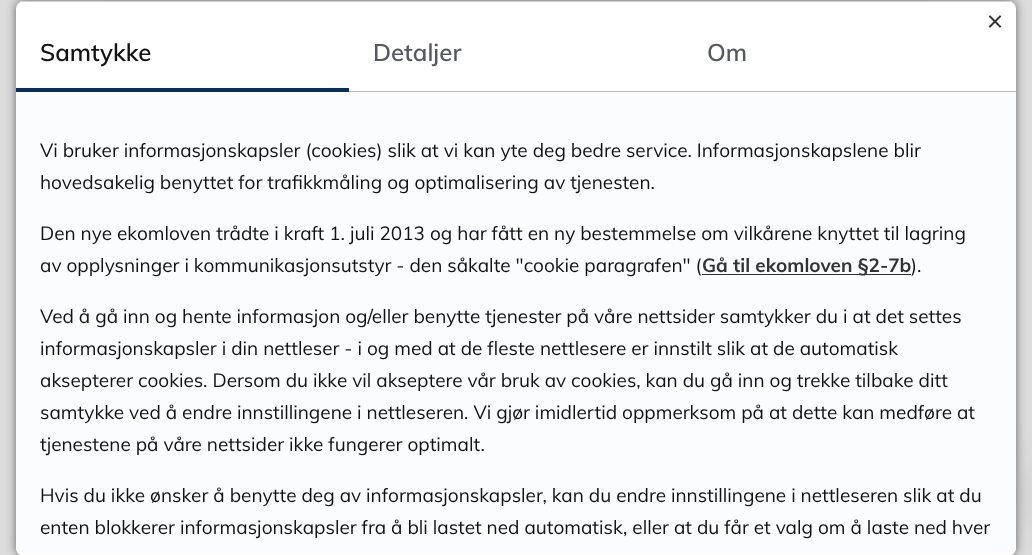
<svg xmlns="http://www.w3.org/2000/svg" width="1032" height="555">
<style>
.a{font:600 24px Muli;fill:#131313}
.b{font:600 24px Muli;fill:#545961}
.c{font:19px Muli;fill:#131313}
.d{font:bold 19px Muli;fill:#333}
</style>
<rect width="100%" height="100%" fill="#dcdcdc"/>
<path fill="#d6d5d2" d="M103 0h826v1H103z"/>
<rect fill="#616161" filter="blur(5px)" x="16" y="1" width="1000" height="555" rx="8"/>
<rect fill="#afafaf" filter="blur(20px)" x="932" y="455" width="80" height="80" rx="40"/>
<rect fill="#fff" x="16" y="1" width="1000" height="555" rx="8"/>
<image href="1.png" x="988" y="15" width="14" height="13"/>
<path fill="#d3d3d3" d="M20 1h992v1H20z"/>
<path fill="#082f59" d="M16 88h333v4H16z"/>
<path fill="#b1b8cc" d="M349 91h667v1H349z"/>
<path fill="#fbfcfe" d="M16 92v456c0 3 4 6 8 6h984c4 0 8-3 8-6v-456z"/>
<path fill="#333" d="M702 274h209v1H702z"/>
<text class="a" x="40" y="61">Samtykke</text>
<text class="b" x="373" y="61">Detaljer</text>
<text class="b" x="707" y="61">Om</text>
<text class="c" x="40" y="157">Vi bruker informasjonskapsler (cookies) slik at vi kan yte deg bedre service. Informasjonskapslene blir</text>
<text class="c" x="40" y="189">hovedsakelig benyttet for trafikkmåling og optimalisering av tjenesten.</text>
<text class="c" x="40" y="240">Den nye ekomloven trådte i kraft 1. juli 2013 og har fått en ny bestemmelse om vilkårene knyttet til lagring</text>
<text class="c" x="40" y="272">av opplysninger i kommunikasjonsutstyr - den såkalte "cookie paragrafen" (</text>
<text class="d" x="702" y="272">Gå til ekomloven §2-7b</text>
<text class="c" x="911" y="272">).</text>
<text class="c" x="40" y="323">Ved å gå inn og hente informasjon og/eller benytte tjenester på våre nettsider samtykker du i at det settes</text>
<text class="c" x="40" y="355">informasjonskapsler i din nettleser - i og med at de fleste nettlesere er innstilt slik at de automatisk</text>
<text class="c" x="40" y="387">aksepterer cookies. Dersom du ikke vil akseptere vår bruk av cookies, kan du gå inn og trekke tilbake ditt</text>
<text class="c" x="40" y="419">samtykke ved å endre innstillingene i nettleseren. Vi gjør imidlertid oppmerksom på at dette kan medføre at</text>
<text class="c" x="40" y="451">tjenestene på våre nettsider ikke fungerer optimalt.</text>
<text class="c" x="40" y="502">Hvis du ikke ønsker å benytte deg av informasjonskapsler, kan du endre innstillingene i nettleseren slik at du</text>
<text class="c" x="40" y="534">enten blokkerer informasjonskapsler fra å bli lastet ned automatisk, eller at du får et valg om å laste ned hver</text>
</svg>
